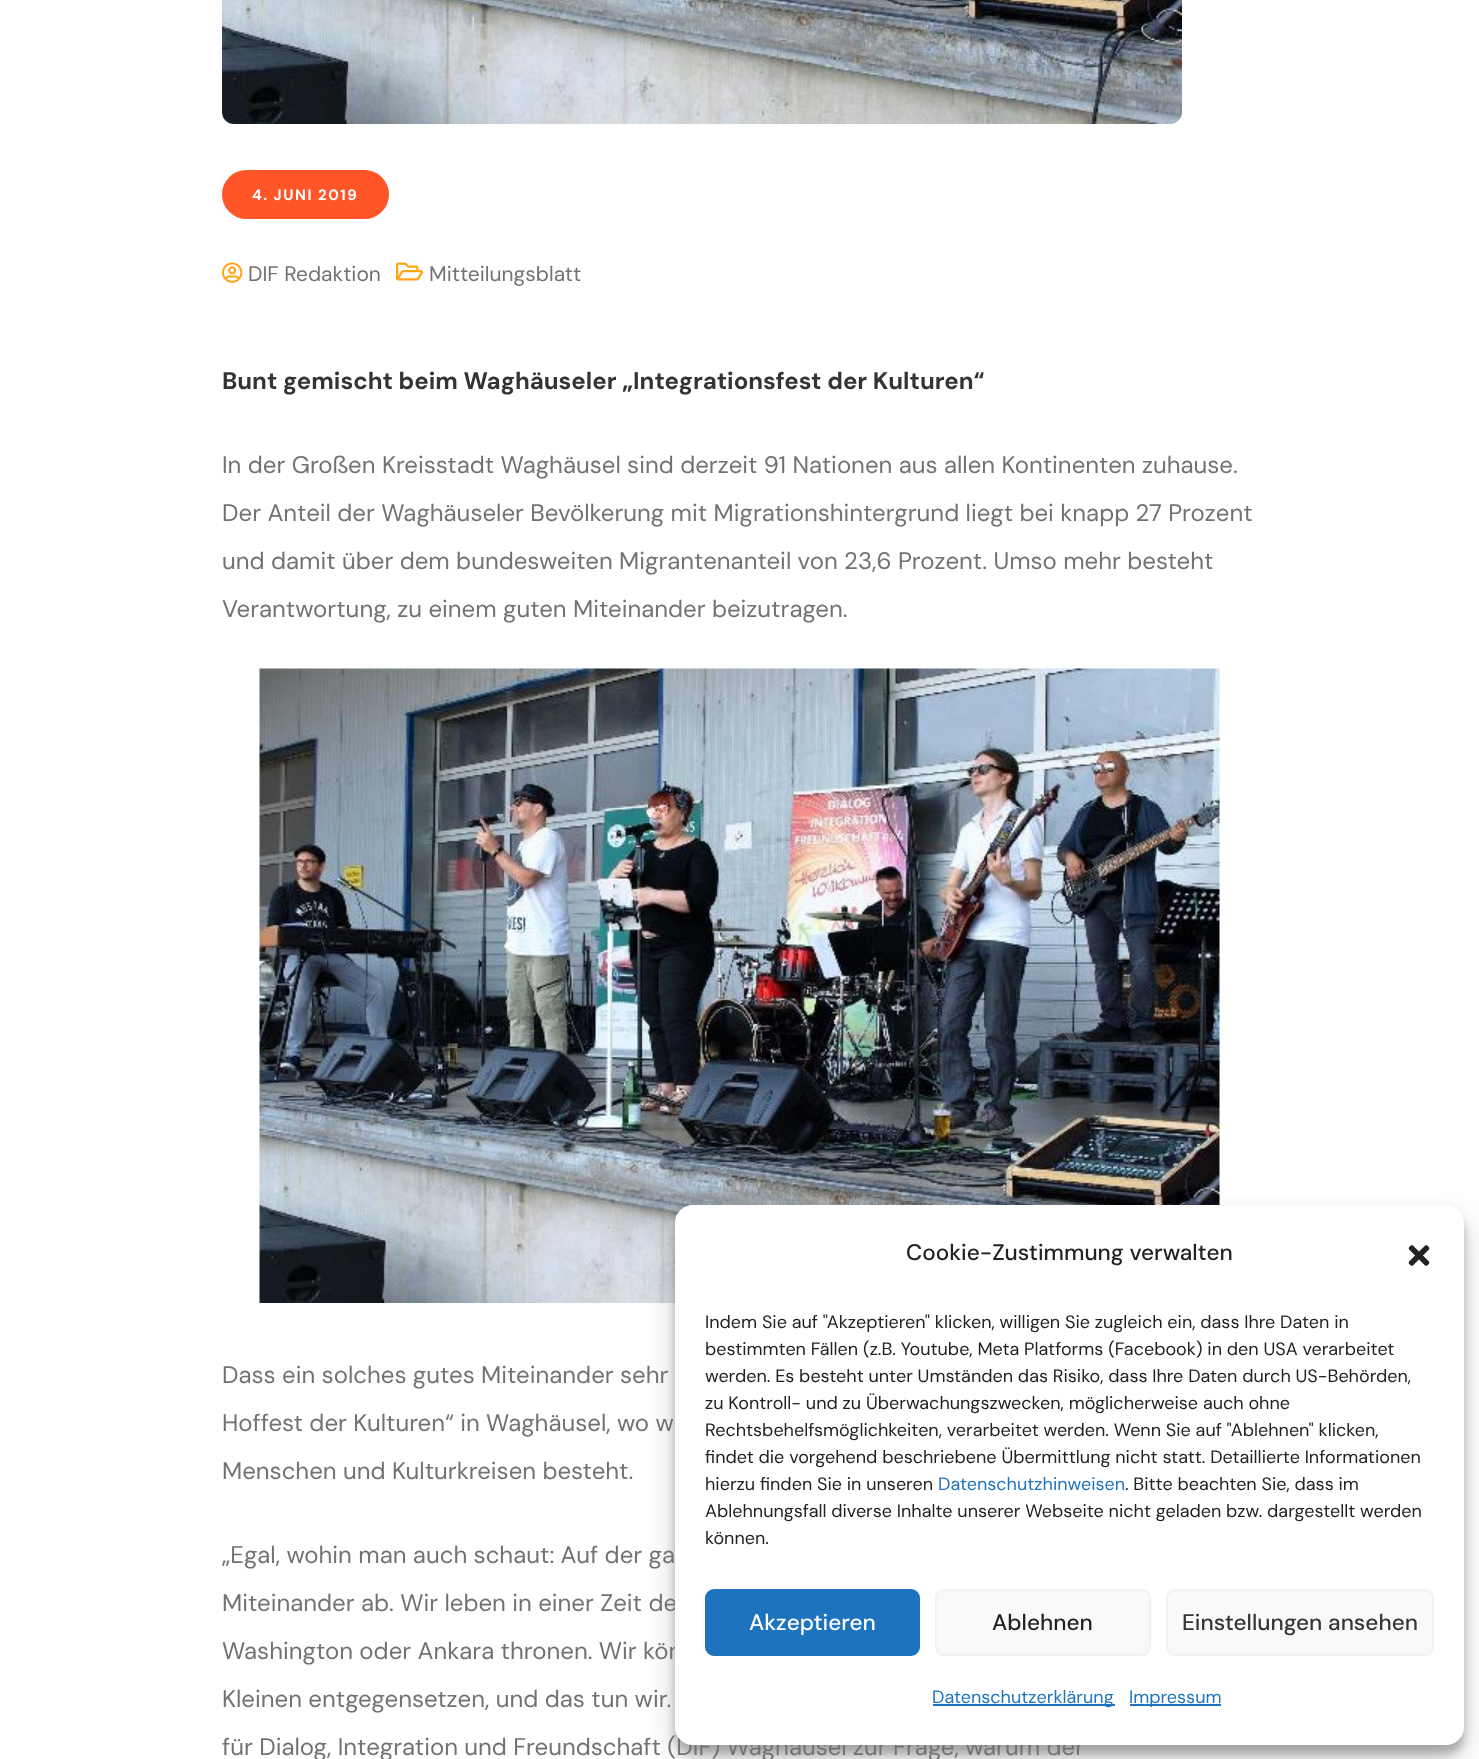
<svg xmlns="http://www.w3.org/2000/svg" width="1479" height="1759">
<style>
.a{font:bold 15px DM Sans;letter-spacing:1.5px;fill:#fff}
.b{font:21px DM Sans;fill:#727272}
.c{font:bold 24px DM Sans;fill:#343434}
.d{font:24px DM Sans;fill:#727272}
.e{font:500 22.5px DM Sans;fill:#222}
.f{font:18px DM Sans;fill:#222}
.g{font:18px DM Sans;fill:#1e73be}
.h{font:500 22.5px DM Sans;fill:#fff}
.i{font:500 22.5px DM Sans;fill:#343434}
</style>
<rect width="100%" height="100%" fill="#fff"/>
<image href="1.png" x="222" y="0" width="960" height="124"/>
<rect fill="#ff5528" x="222" y="170" width="167" height="49" rx="24.5"/>
<image href="2.png" x="222" y="262" width="21" height="21"/>
<image href="3.png" x="396" y="262" width="27" height="19"/>
<image href="4.png" x="259" y="668" width="961" height="635"/>
<rect fill="#0000003b" filter="blur(4.5px)" x="675" y="1214" width="789" height="540" rx="18"/>
<rect fill="#00000030" filter="blur(15px)" x="675" y="1220" width="789" height="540" rx="18"/>
<text class="a" x="252" y="200">4. JUNI 2019</text>
<text class="b" x="248" y="281">DIF Redaktion</text>
<text class="b" x="429" y="281">Mitteilungsblatt</text>
<text class="c" x="222" y="389">Bunt gemischt beim Waghäuseler „Integrationsfest der Kulturen“</text>
<text class="d" x="222" y="473">In der Großen Kreisstadt Waghäusel sind derzeit 91 Nationen aus allen Kontinenten zuhause.</text>
<text class="d" x="222" y="521">Der Anteil der Waghäuseler Bevölkerung mit Migrationshintergrund liegt bei knapp 27 Prozent</text>
<text class="d" x="222" y="569">und damit über dem bundesweiten Migrantenanteil von 23,6 Prozent. Umso mehr besteht</text>
<text class="d" x="222" y="617">Verantwortung, zu einem guten Miteinander beizutragen.</text>
<text class="d" x="222" y="1383">Dass ein solches gutes Miteinander sehr</text>
<text class="d" x="222" y="1431">Hoffest der Kulturen“ in Waghäusel, wo w</text>
<text class="d" x="222" y="1479">Menschen und Kulturkreisen besteht.</text>
<text class="d" x="222" y="1563">„Egal, wohin man auch schaut: Auf der ga</text>
<text class="d" x="222" y="1611">Miteinander ab. Wir leben in einer Zeit de</text>
<text class="d" x="222" y="1659">Washington oder Ankara thronen. Wir kön</text>
<text class="d" x="222" y="1707">Kleinen entgegensetzen, und das tun wir.</text>
<text class="d" x="222" y="1755">für Dialog, Integration und Freundschaft (DIF) Waghäusel zur Frage, warum der</text>
<rect fill="#fff" x="675" y="1205" width="789" height="540" rx="18"/>
<text class="e" x="906" y="1260">Cookie-Zustimmung verwalten</text>
<image href="5.png" x="1408" y="1245" width="22" height="21"/>
<text class="f" x="705" y="1328">Indem Sie auf "Akzeptieren" klicken, willigen Sie zugleich ein, dass Ihre Daten in</text>
<text class="f" x="705" y="1355">bestimmten Fällen (z.B. Youtube, Meta Platforms (Facebook) in den USA verarbeitet</text>
<text class="f" x="705" y="1382">werden. Es besteht unter Umständen das Risiko, dass Ihre Daten durch US-Behörden,</text>
<text class="f" x="705" y="1409">zu Kontroll- und zu Überwachungszwecken, möglicherweise auch ohne</text>
<text class="f" x="705" y="1436">Rechtsbehelfsmöglichkeiten, verarbeitet werden. Wenn Sie auf "Ablehnen" klicken,</text>
<text class="f" x="705" y="1463">findet die vorgehend beschriebene Übermittlung nicht statt. Detaillierte Informationen</text>
<text class="f" x="705" y="1490">hierzu finden Sie in unseren</text>
<text class="g" x="938" y="1490">Datenschutzhinweisen</text>
<text class="f" x="1125" y="1490">. Bitte beachten Sie, dass im</text>
<text class="f" x="705" y="1517">Ablehnungsfall diverse Inhalte unserer Webseite nicht geladen bzw. dargestellt werden</text>
<text class="f" x="705" y="1544">können.</text>
<rect fill="#1e73be" stroke="#1e73be" stroke-width="2" x="706" y="1590" width="213" height="65" rx="8"/>
<text class="h" x="749" y="1630">Akzeptieren</text>
<rect fill="#f9f9f9" stroke="#f2f2f2" stroke-width="2" x="936" y="1590" width="214" height="65" rx="8"/>
<text class="e" x="992" y="1630">Ablehnen</text>
<rect fill="#f9f9f9" stroke="#f2f2f2" stroke-width="2" x="1167" y="1590" width="266" height="65" rx="8"/>
<text class="i" x="1182" y="1630">Einstellungen ansehen</text>
<path fill="#1e73be" d="M933 1704h182v2H933z"/>
<text class="g" x="932" y="1703">Datenschutzerklärung</text>
<path fill="#1e73be" d="M1130 1704h91v2H1130z"/>
<text class="g" x="1129" y="1703">Impressum</text>
</svg>
